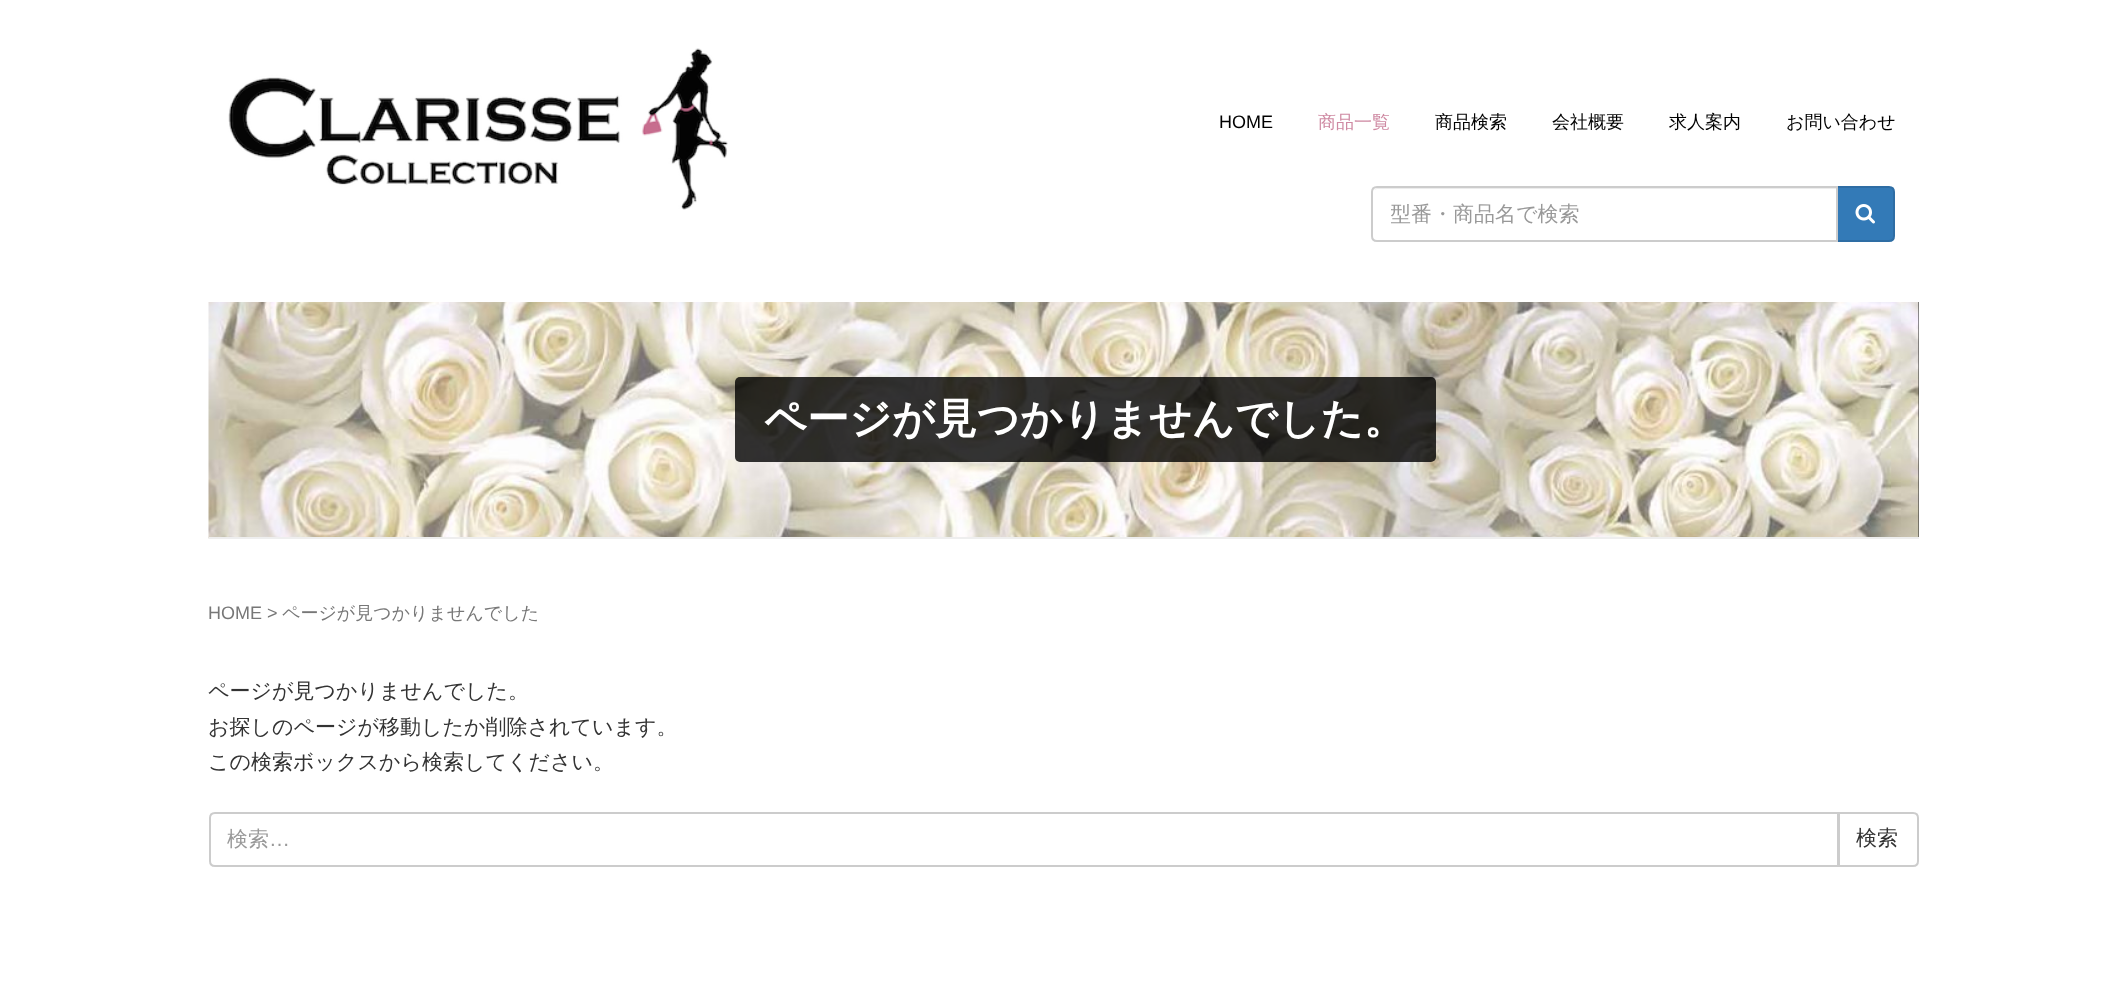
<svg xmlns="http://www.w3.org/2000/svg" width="2125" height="986">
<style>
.a{font:18px Liberation Sans;fill:#000}
.b{font:500 18px WenQuanYi Zen Hei;fill:#cf8aa3}
.c{font:500 18px WenQuanYi Zen Hei;fill:#000}
.d{font:500 21px WenQuanYi Zen Hei;fill:#999}
.e{font:bold 42px WenQuanYi Zen Hei;fill:#fff}
.f{font:18px Liberation Sans;fill:#777}
.g{font:500 18px WenQuanYi Zen Hei;fill:#777}
.h{font:500 21px WenQuanYi Zen Hei;fill:#333}
.i{font:21px Liberation Sans;fill:#999}
</style>
<defs>
<clipPath id="clip1"><path d="M1391 201h427v27H1391z"/></clipPath>
</defs>
<rect width="100%" height="100%" fill="#fff"/>
<image href="1.png" x="228" y="48" width="500" height="162"/>
<path fill="#337ab7" stroke="#2e6da4" stroke-width="2" d="M1837 187h52c3 0 5 2 5 5v44c0 3-2 5-5 5h-52z"/>
<path fill="#fff" d="M1377 186h461v56h-461c-3.5 0-6-2.5-6-6v-44c0-3.5 2.5-6 6-6z"/>
<path fill="#ececec" d="M1377 189h459v-1h-458c-2 0-3 1-4 2z"/>
<path fill="none" stroke="#ccc" stroke-width="2" d="M1377 187h460v54h-460c-3 0-5-2-5-5v-44c0-3 2-5 5-5z"/>
<image href="2.png" x="1855" y="204" width="20" height="20"/>
<path fill="#222" d="M1918 302h1v235H1918z"/>
<image href="3.png" x="208" y="302" width="1711" height="237"/>
<path fill="#eee" d="M209 537h1710v2H209z"/>
<rect fill="#000000cc" x="735" y="377" width="701" height="85" rx="5"/>
<path fill="none" stroke="#ccc" stroke-width="2" d="M1839 813h74c3 0 5 2 5 5v43c0 3-2 5-5 5h-74z"/>
<path fill="#fff" stroke="#ccc" stroke-width="2" d="M215 813h1623v53h-1623c-3 0-5-2-5-5v-43c0-3 2-5 5-5z"/>
<text class="a" x="1219" y="128">HOME</text>
<text class="b" x="1318" y="128">商品一覧</text>
<text class="c" x="1435" y="128">商品検索</text>
<text class="c" x="1552" y="128">会社概要</text>
<text class="c" x="1669" y="128">求人案内</text>
<text class="c" x="1786" y="128">お問い合わせ</text>
<g clip-path="url(#clip1)">
<text class="d" x="1390" y="221">型番・商品名で検索</text>
</g>
<text class="e" x="764" y="433">ページが見つかりませんでした。</text>
<text class="f" x="208" y="619">HOME &gt;</text>
<text class="g" x="282" y="619">ページが見つかりませんでした</text>
<text class="h" x="208" y="698">ページが見つかりませんでした。</text>
<text class="h" x="208" y="734">お探しのページが移動したか削除されています。</text>
<text class="h" x="208" y="769">この検索ボックスから検索してください。</text>
<text class="d" x="227" y="846">検索</text>
<text class="i" x="269" y="846">…</text>
<text class="h" x="1856" y="845">検索</text>
</svg>
